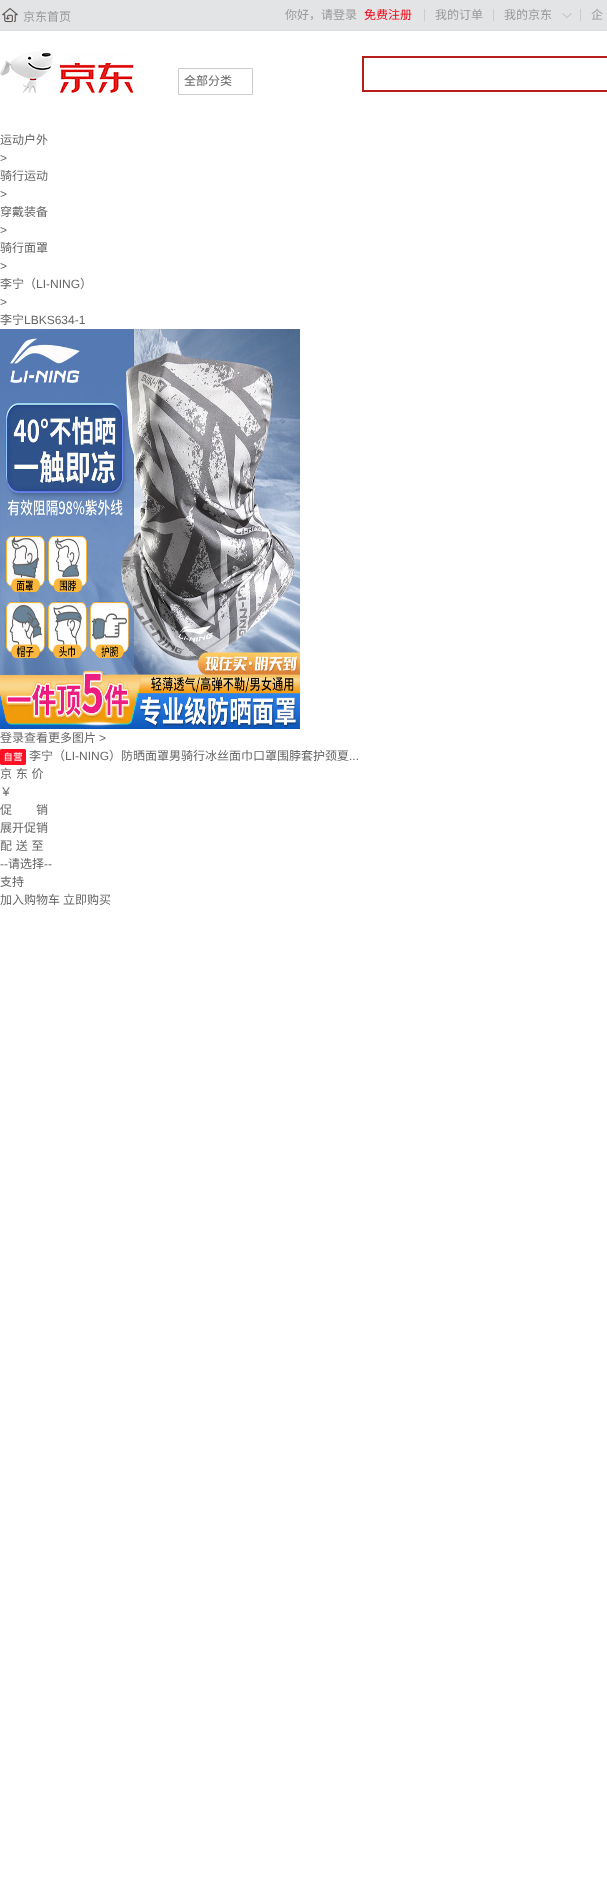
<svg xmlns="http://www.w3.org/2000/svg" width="607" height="1903">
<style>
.a{font:12px Noto Sans CJK SC;fill:#999}
.b{font:12px Noto Sans CJK SC;fill:#f30213}
.c{font:12px Noto Sans CJK SC;fill:#666}
.d{font:12px Liberation Sans;fill:#666}
</style>
<rect width="100%" height="100%" fill="#fff"/>
<path fill="#e3e4e5" d="M0 0h607v30H0z"/>
<path fill="#ddd" d="M0 30h607v1H0z"/>
<image href="1.png" x="2" y="8" width="16" height="15"/>
<path fill="#ccc" d="M424 9h1v12H424z"/>
<path fill="#ccc" d="M493 9h1v12H493z"/>
<image href="2.png" x="562" y="13" width="10" height="5"/>
<path fill="#ccc" d="M580 9h1v12H580z"/>
<image href="3.png" x="0" y="51" width="134" height="42"/>
<path fill="none" stroke="#ccc" d="M178.5 68.5h74v26H178.5z"/>
<path fill="#b61d1d" d="M362 56h245v2H362z"/>
<path fill="#b61d1d" d="M362 90h245v2H362z"/>
<path fill="#b61d1d" d="M362 56h2v36H362z"/>
<image href="4.png" x="0" y="329" width="300" height="400"/>
<image href="5.png" x="0" y="749" width="26" height="16"/>
<text class="a" x="23" y="21">京东首页</text>
<text class="a" x="285" y="19">你好，请登录</text>
<text class="b" x="364" y="19">免费注册</text>
<text class="a" x="435" y="19">我的订单</text>
<text class="a" x="504" y="19">我的京东</text>
<text class="a" x="591" y="19">企</text>
<text class="c" x="184" y="85">全部分类</text>
<text class="c" x="0" y="144">运动户外</text>
<text class="d" x="0" y="162">&gt;</text>
<text class="c" x="0" y="180">骑行运动</text>
<text class="d" x="0" y="198">&gt;</text>
<text class="c" x="0" y="216">穿戴装备</text>
<text class="d" x="0" y="234">&gt;</text>
<text class="c" x="0" y="252">骑行面罩</text>
<text class="d" x="0" y="270">&gt;</text>
<text class="c" x="0" y="288">李宁（</text>
<text class="d" x="36" y="288">LI-NING</text>
<text class="c" x="80" y="288">）</text>
<text class="d" x="0" y="306">&gt;</text>
<text class="c" x="0" y="324">李宁</text>
<text class="d" x="24" y="324">LBKS634-1</text>
<text class="c" x="0" y="742">登录查看更多图片</text>
<text class="d" x="99" y="742">&gt;</text>
<text class="c" x="29" y="760">李宁（</text>
<text class="d" x="65" y="760">LI-NING</text>
<text class="c" x="109" y="760">）防晒面罩男骑行冰丝面巾口罩围脖套护颈夏</text>
<text class="d" x="349" y="760">...</text>
<text class="c" x="0" y="778" word-spacing="1">京 东 价</text>
<text class="c" x="0" y="796">￥</text>
<text class="c" x="0" y="814">促　　销</text>
<text class="c" x="0" y="832">展开促销</text>
<text class="c" x="0" y="850" word-spacing="1">配 送 至</text>
<text class="d" x="0" y="868">--</text>
<text class="c" x="8" y="868">请选择</text>
<text class="d" x="44" y="868">--</text>
<text class="c" x="0" y="886">支持</text>
<text class="c" x="0" y="904">加入购物车</text>
<text class="c" x="63" y="904">立即购买</text>
</svg>
